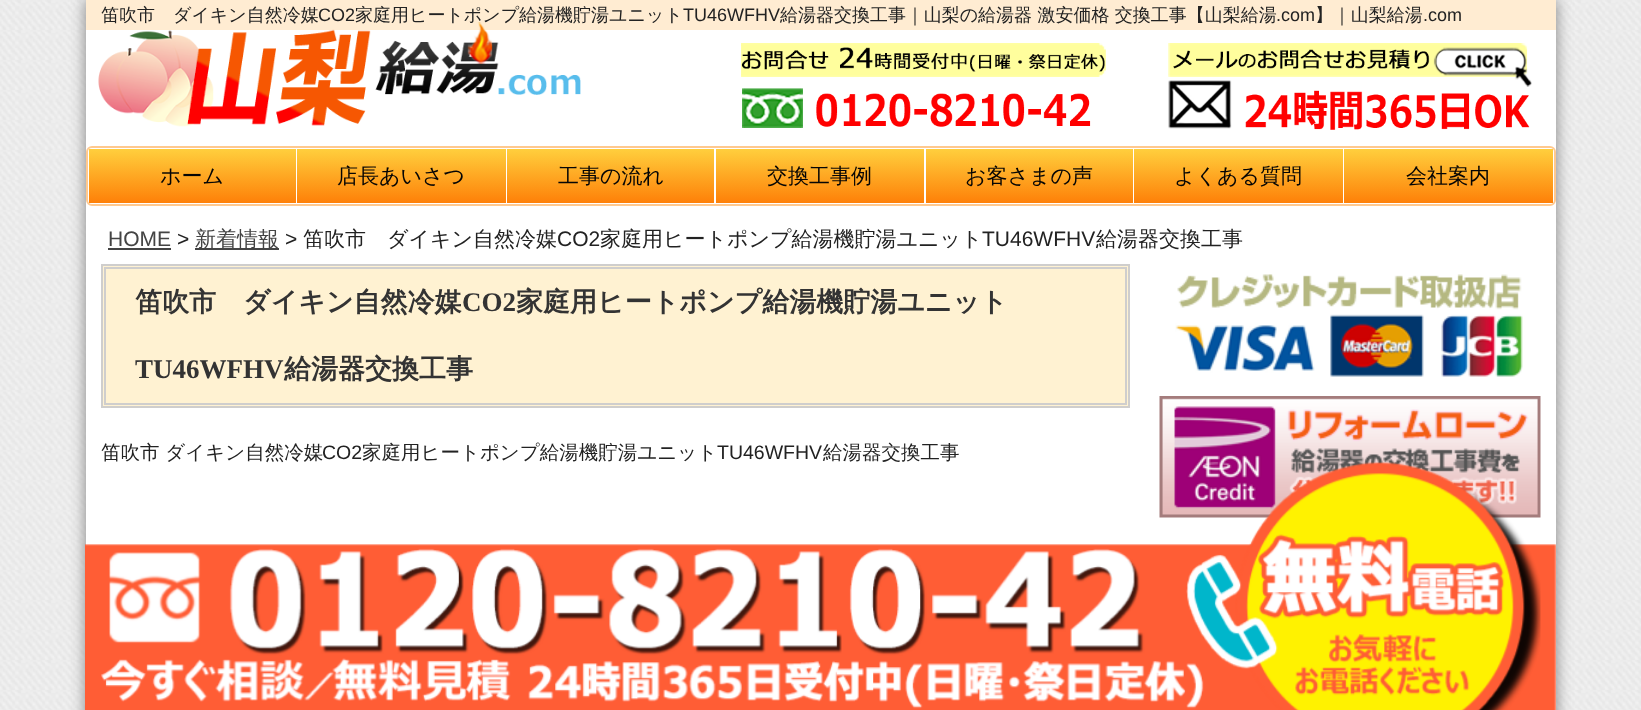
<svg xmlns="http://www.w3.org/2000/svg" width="1641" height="710">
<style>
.a{font:500 18px WenQuanYi Zen Hei;fill:#222}
.b{font:18px Liberation Sans;fill:#222}
.c{font:500 21px WenQuanYi Zen Hei;fill:#050505}
.d{font:21px Liberation Sans;fill:#444}
.e{font:21px Liberation Sans;fill:#222}
.f{font:500 21px WenQuanYi Zen Hei;fill:#444}
.g{font:500 21px WenQuanYi Zen Hei;fill:#222}
.h{font:bold 27px WenQuanYi Zen Hei;fill:#333}
.i{font:bold 27px Liberation Serif;fill:#333}
.j{font:500 19.5px WenQuanYi Zen Hei;fill:#222}
.k{font:19.5px Liberation Sans;fill:#222}
</style>
<defs>
<linearGradient id="g1" gradientUnits="userSpaceOnUse" x1="192" y1="149" x2="192" y2="203"><stop offset="0" stop-color="#ffcf3d"/><stop offset="1" stop-color="#fe8008"/></linearGradient>
<linearGradient id="g2" gradientUnits="userSpaceOnUse" x1="401" y1="149" x2="401" y2="203"><stop offset="0" stop-color="#ffcf3d"/><stop offset="1" stop-color="#fe8008"/></linearGradient>
<linearGradient id="g3" gradientUnits="userSpaceOnUse" x1="611" y1="149" x2="611" y2="203"><stop offset="0" stop-color="#ffcf3d"/><stop offset="1" stop-color="#fe8008"/></linearGradient>
<linearGradient id="g4" gradientUnits="userSpaceOnUse" x1="820" y1="149" x2="820" y2="203"><stop offset="0" stop-color="#ffcf3d"/><stop offset="1" stop-color="#fe8008"/></linearGradient>
<linearGradient id="g5" gradientUnits="userSpaceOnUse" x1="1029" y1="149" x2="1029" y2="203"><stop offset="0" stop-color="#ffcf3d"/><stop offset="1" stop-color="#fe8008"/></linearGradient>
<linearGradient id="g6" gradientUnits="userSpaceOnUse" x1="1238" y1="149" x2="1238" y2="203"><stop offset="0" stop-color="#ffcf3d"/><stop offset="1" stop-color="#fe8008"/></linearGradient>
<linearGradient id="g7" gradientUnits="userSpaceOnUse" x1="1448" y1="149" x2="1448" y2="203"><stop offset="0" stop-color="#ffcf3d"/><stop offset="1" stop-color="#fe8008"/></linearGradient>
</defs>
<rect width="100%" height="100%" fill="#fff"/>
<image href="1.png" x="0" y="0" width="1641" height="710"/>
<path fill="#818181" filter="blur(7.5px)" d="M86 0h1470v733H86z"/>
<path fill="#fff" d="M86 30h1470v680H86z"/>
<path fill="#ffecd2" d="M86 0h1470v30H86z"/>
<image href="3.png" x="741" y="43" width="365" height="85"/>
<image href="4.png" x="1168" y="43" width="364" height="87"/>
<rect fill="none" stroke="#ffc98f" stroke-width="2" x="87" y="147" width="1468" height="58" rx="5"/>
<path fill="url(#g1)" d="M89 149h207v54H89z"/>
<path fill="url(#g2)" d="M297 149h209v54H297z"/>
<path fill="url(#g3)" d="M507 149h207v54H507z"/>
<path fill="url(#g4)" d="M716 149h208v54H716z"/>
<path fill="url(#g5)" d="M926 149h207v54H926z"/>
<path fill="url(#g6)" d="M1134 149h209v54H1134z"/>
<path fill="url(#g7)" d="M1344 149h209v54H1344z"/>
<path fill="#444" d="M108 248h63v2H108z"/>
<path fill="#444" d="M195 248h84v2H195z"/>
<path fill="#fff2d2" stroke="#cfcecd" stroke-width="2" d="M102 265h1027v142H102z"/>
<path fill="none" stroke="#cfcecd" stroke-width="2" d="M105 268h1021v136H105z"/>
<image href="5.png" x="1175" y="274" width="348" height="103"/>
<image href="6.png" x="1159" y="396" width="382" height="122"/>
<image href="8.png" x="85" y="544" width="1471" height="166"/>
<image href="7.png" x="1186" y="462" width="355" height="248"/>
<text class="a" x="101" y="21">笛吹市　ダイキン自然冷媒</text>
<text class="b" x="318" y="21">CO2</text>
<text class="a" x="355" y="21">家庭用ヒートポンプ給湯機貯湯ユニット</text>
<text class="b" x="683" y="21">TU46WFHV</text>
<text class="a" x="780" y="21">給湯器交換工事｜山梨の給湯器 激安価格 交換工事【山梨給湯</text>
<text class="b" x="1276" y="21">.com</text>
<text class="a" x="1315" y="21">】｜山梨給湯</text>
<text class="b" x="1423" y="21">.com</text>
<image href="2.png" x="98" y="22" width="483" height="105"/>
<text class="c" x="160" y="183">ホーム</text>
<text class="c" x="337" y="183">店長あいさつ</text>
<text class="c" x="558" y="183">工事の流れ</text>
<text class="c" x="767" y="183">交換工事例</text>
<text class="c" x="965" y="183">お客さまの声</text>
<text class="c" x="1174" y="183">よくある質問</text>
<text class="c" x="1406" y="183">会社案内</text>
<text class="d" x="108" y="246">HOME</text>
<text class="e" x="177" y="246">&gt;</text>
<text class="f" x="195" y="246">新着情報</text>
<text class="e" x="285" y="246">&gt;</text>
<text class="g" x="303" y="246">笛吹市　ダイキン自然冷媒</text>
<text class="e" x="557" y="246">CO2</text>
<text class="g" x="600" y="246">家庭用ヒートポンプ給湯機貯湯ユニット</text>
<text class="e" x="982" y="246">TU46WFHV</text>
<text class="g" x="1096" y="246">給湯器交換工事</text>
<text class="h" x="135" y="311">笛吹市　ダイキン自然冷媒</text>
<text class="i" x="462" y="311">CO2</text>
<text class="h" x="516" y="311">家庭用ヒートポンプ給湯機貯湯ユニット</text>
<text class="i" x="135" y="378">TU46WFHV</text>
<text class="h" x="284" y="378">給湯器交換工事</text>
<text class="j" x="101" y="459">笛吹市 ダイキン自然冷媒</text>
<text class="k" x="322" y="459">CO2</text>
<text class="j" x="362" y="459">家庭用ヒートポンプ給湯機貯湯ユニット</text>
<text class="k" x="717" y="459">TU46WFHV</text>
<text class="j" x="823" y="459">給湯器交換工事</text>
</svg>
